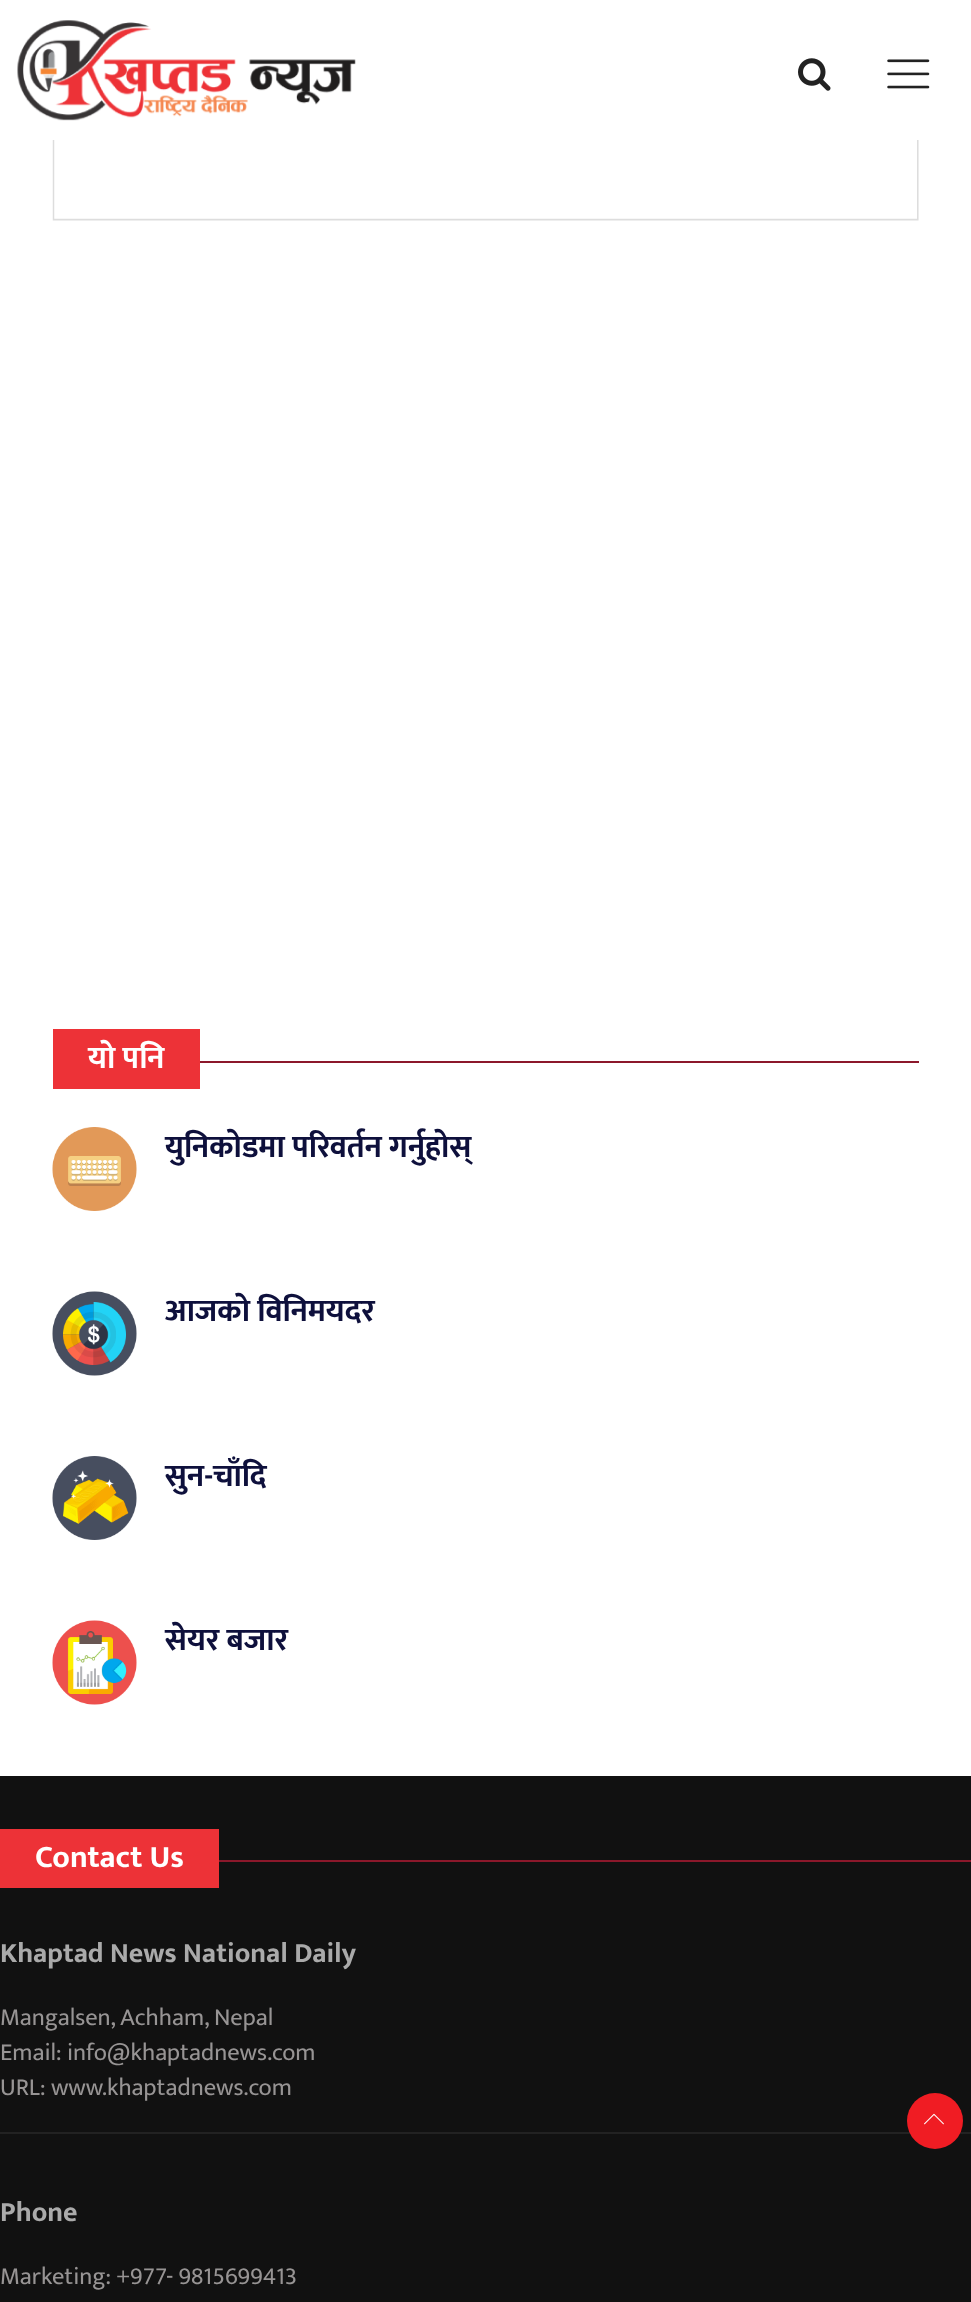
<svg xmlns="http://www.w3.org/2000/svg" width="971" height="2302">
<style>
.a{font:bold 31.5px Mukta;fill:#fff}
.b{font:bold 31.5px Mukta;fill:#0e103c}
.c{font:bold 28px Mukta;fill:#aaa}
.d{font:24.5px Mukta;fill:#979494}
</style>
<rect width="100%" height="100%" fill="#fff"/>
<image href="1.png" x="887" y="59" width="43" height="30"/>
<image href="2.png" x="17" y="20" width="339" height="101"/>
<image href="3.png" x="798" y="58" width="33" height="33"/>
<image href="4.png" x="52" y="140" width="867" height="81"/>
<path fill="#ed3237" d="M53 1029h147v60H53z"/>
<path fill="#8c182b" d="M200 1061h719v2H200z"/>
<image href="5.png" x="52" y="1127" width="85" height="84"/>
<image href="6.png" x="52" y="1291" width="85" height="85"/>
<image href="7.png" x="52" y="1456" width="85" height="84"/>
<image href="8.png" x="52" y="1620" width="85" height="85"/>
<path fill="#111" d="M0 1776h971v526H0z"/>
<path fill="#ed3237" d="M0 1829h219v59H0z"/>
<path fill="#8c182b" d="M219 1860h752v2H219z"/>
<path fill="#222" d="M0 2132h971v2H0z"/>
<circle fill="#f01c23" cx="935" cy="2121" r="28"/>
<image href="9.png" x="924" y="2113" width="20" height="12"/>
<text class="a" x="88" y="1068">यो पनि</text>
<text class="b" x="165" y="1157">युनिकोडमा परिवर्तन गर्नुहोस्</text>
<text class="b" x="165" y="1321">आजको विनिमयदर</text>
<text class="b" x="165" y="1486">सुन-चाँदि</text>
<text class="b" x="165" y="1650">सेयर बजार</text>
<text class="a" x="35" y="1867">Contact Us</text>
<text class="c" x="0" y="1962">Khaptad News National Daily</text>
<text class="d" x="0" y="2025">Mangalsen, Achham, Nepal</text>
<text class="d" x="0" y="2060">Email: info@khaptadnews.com</text>
<text class="d" x="0" y="2095">URL: www.khaptadnews.com</text>
<text class="c" x="0" y="2221">Phone</text>
<text class="d" x="0" y="2284">Marketing: +977- 9815699413</text>
</svg>
